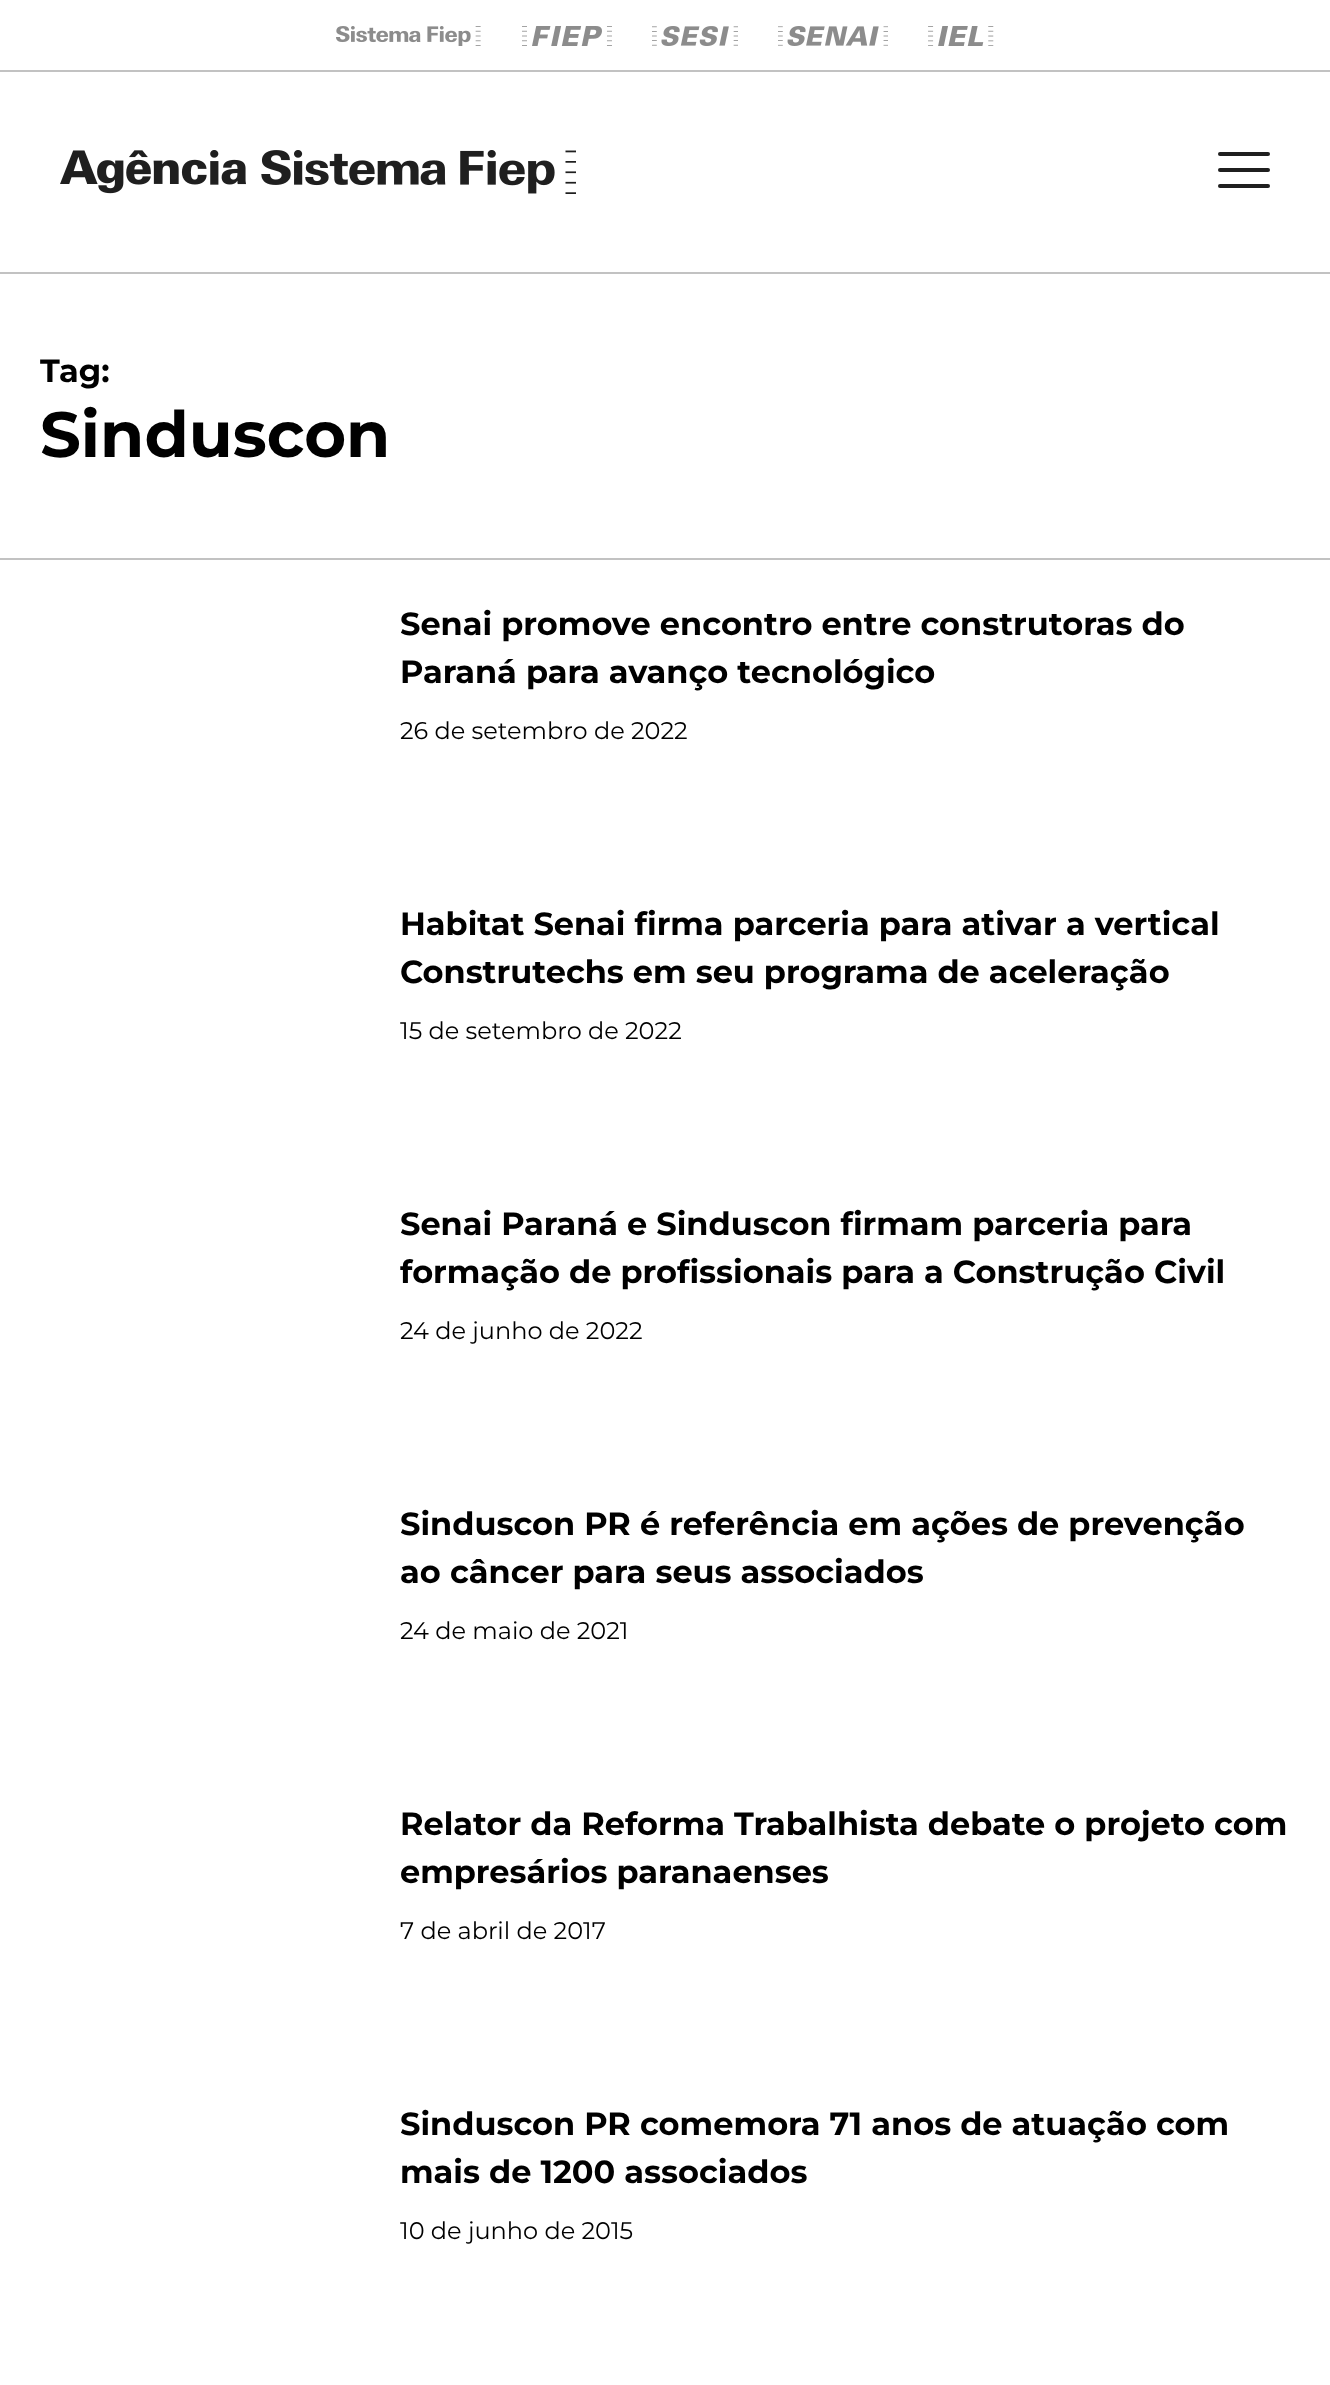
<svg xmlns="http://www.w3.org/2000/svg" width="1330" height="2385">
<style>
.a{font:bold 32px Montserrat;fill:#000}
.b{font:bold 64px Montserrat;fill:#000}
.c{font:24px Montserrat;fill:#000}
</style>
<rect width="100%" height="100%" fill="#fff"/>
<path fill="#c2c2c2" d="M0 70h1330v2H0z"/>
<image href="1.png" x="336" y="26" width="145" height="20"/>
<image href="2.png" x="522" y="26" width="90" height="20"/>
<image href="3.png" x="652" y="26" width="86" height="20"/>
<image href="4.png" x="778" y="26" width="110" height="20"/>
<image href="5.png" x="928" y="26" width="66" height="20"/>
<path fill="#c2c2c2" d="M0 272h1330v2H0z"/>
<image href="6.png" x="60" y="150" width="516" height="44"/>
<rect fill="#1f1f1f" x="1218" y="152" width="52" height="4" rx="2"/>
<rect fill="#1f1f1f" x="1218" y="168" width="52" height="4" rx="2"/>
<rect fill="#1f1f1f" x="1218" y="184" width="52" height="4" rx="2"/>
<path fill="#c2c2c2" d="M0 558h1330v2H0z"/>
<text class="a" x="40" y="382">Tag:</text>
<text class="b" x="40" y="457">Sinduscon</text>
<text class="a" x="400" y="635">Senai promove encontro entre construtoras do</text>
<text class="a" x="400" y="683">Paraná para avanço tecnológico</text>
<text class="c" x="400" y="739">26 de setembro de 2022</text>
<text class="a" x="400" y="935">Habitat Senai firma parceria para ativar a vertical</text>
<text class="a" x="400" y="983">Construtechs em seu programa de aceleração</text>
<text class="c" x="400" y="1039">15 de setembro de 2022</text>
<text class="a" x="400" y="1235">Senai Paraná e Sinduscon firmam parceria para</text>
<text class="a" x="400" y="1283">formação de profissionais para a Construção Civil</text>
<text class="c" x="400" y="1339">24 de junho de 2022</text>
<text class="a" x="400" y="1535">Sinduscon PR é referência em ações de prevenção</text>
<text class="a" x="400" y="1583">ao câncer para seus associados</text>
<text class="c" x="400" y="1639">24 de maio de 2021</text>
<text class="a" x="400" y="1835">Relator da Reforma Trabalhista debate o projeto com</text>
<text class="a" x="400" y="1883">empresários paranaenses</text>
<text class="c" x="400" y="1939">7 de abril de 2017</text>
<text class="a" x="400" y="2135">Sinduscon PR comemora 71 anos de atuação com</text>
<text class="a" x="400" y="2183">mais de 1200 associados</text>
<text class="c" x="400" y="2239">10 de junho de 2015</text>
</svg>
